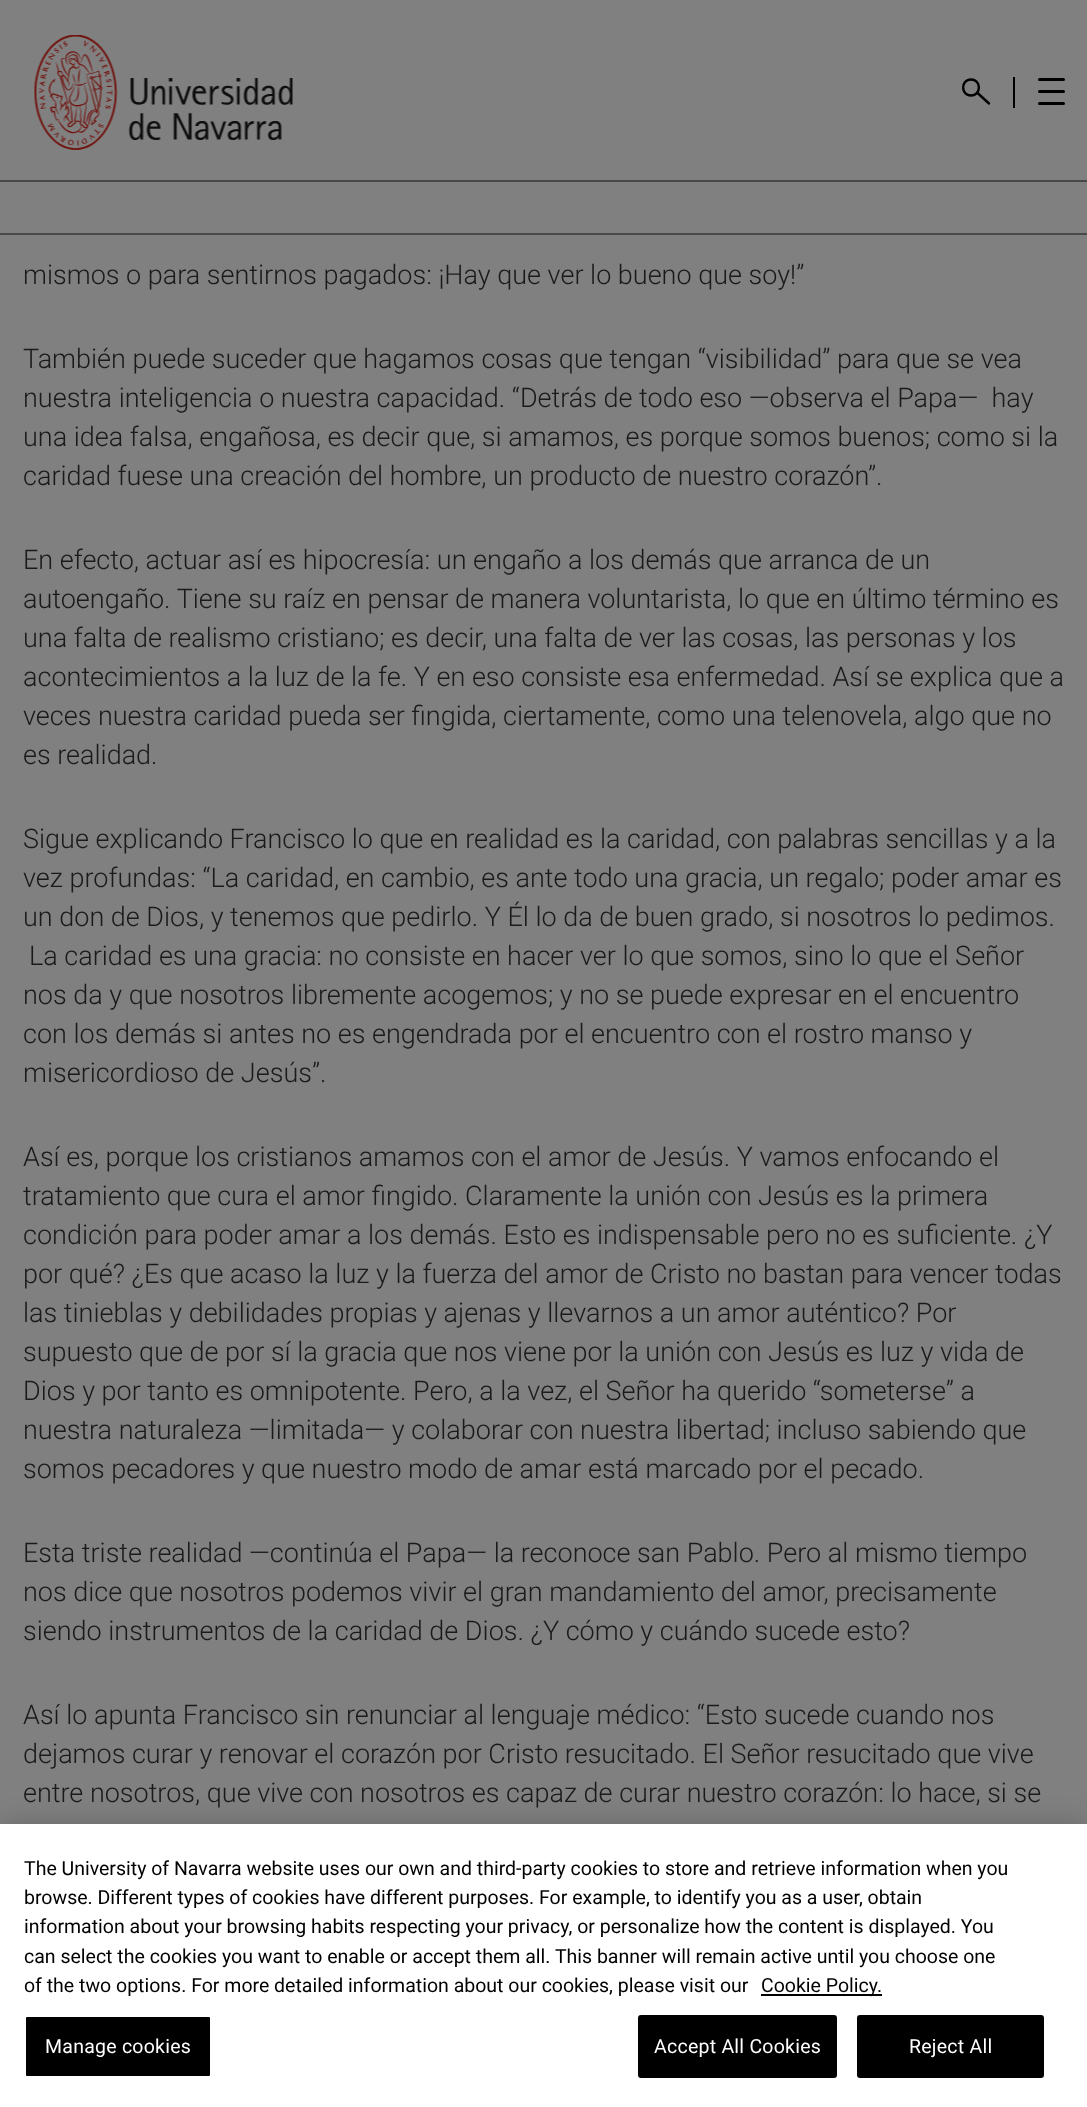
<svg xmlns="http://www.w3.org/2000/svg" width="1087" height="2107">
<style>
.a{font:300 27px Roboto;fill:#1a1a1a}
.b{font:19.5px Roboto;fill:#000}
.c{font:19.5px Roboto;letter-spacing:0.25px;fill:#fff}
</style>
<rect width="100%" height="100%" fill="#808080"/>
<image href="1.png" x="34" y="35" width="259" height="115"/>
<path fill="#000" d="M1013 77h2v31H1013z"/>
<path fill="none" stroke="#000" stroke-width="2.4" stroke-linecap="round" stroke-linejoin="round" d="M971 95.5c10.5 0 10.5-16 0-16c-10.5 0-10.5 16 0 16zm6-3l12 11"/>
<rect fill="#000" x="1038" y="78" width="27" height="3" rx="1.5"/>
<rect fill="#000" x="1038" y="90" width="27" height="3" rx="1.5"/>
<rect fill="#000" x="1038" y="102" width="27" height="3" rx="1.5"/>
<path fill="#4b4848" d="M0 180h1087v2H0z"/>
<path fill="#4b4848" d="M0 233h1087v2H0z"/>
<path fill="#00000033" filter="blur(13.5px)" d="M0 1824h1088v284H0z"/>
<path fill="#fff" d="M0 1824h1087v283H0z"/>
<path fill="#000" d="M761 1994h121v2H761z"/>
<rect fill="#000" stroke="#fff" stroke-width="2" x="25" y="2016" width="186" height="61" rx="2"/>
<rect fill="#000" stroke="#000" stroke-width="2" x="639" y="2016" width="197" height="61" rx="2"/>
<rect fill="#000" stroke="#000" stroke-width="2" x="858" y="2016" width="185" height="61" rx="2"/>
<text class="a" x="23" y="284">mismos o para sentirnos pagados: ¡Hay que ver lo bueno que soy!”</text>
<text class="a" x="23" y="368">También puede suceder que hagamos cosas que tengan “visibilidad” para que se vea</text>
<text class="a" xml:space="preserve" x="23" y="407">nuestra inteligencia o nuestra capacidad. “Detrás de todo eso —observa el Papa—  hay</text>
<text class="a" x="23" y="446">una idea falsa, engañosa, es decir que, si amamos, es porque somos buenos; como si la</text>
<text class="a" x="23" y="485">caridad fuese una creación del hombre, un producto de nuestro corazón”.</text>
<text class="a" x="23" y="569">En efecto, actuar así es hipocresía: un engaño a los demás que arranca de un</text>
<text class="a" x="23" y="608">autoengaño. Tiene su raíz en pensar de manera voluntarista, lo que en último término es</text>
<text class="a" x="23" y="647">una falta de realismo cristiano; es decir, una falta de ver las cosas, las personas y los</text>
<text class="a" x="23" y="686">acontecimientos a la luz de la fe. Y en eso consiste esa enfermedad. Así se explica que a</text>
<text class="a" x="23" y="725">veces nuestra caridad pueda ser fingida, ciertamente, como una telenovela, algo que no</text>
<text class="a" x="23" y="764">es realidad.</text>
<text class="a" x="23" y="848">Sigue explicando Francisco lo que en realidad es la caridad, con palabras sencillas y a la</text>
<text class="a" x="23" y="887">vez profundas: “La caridad, en cambio, es ante todo una gracia, un regalo; poder amar es</text>
<text class="a" x="23" y="926">un don de Dios, y tenemos que pedirlo. Y Él lo da de buen grado, si nosotros lo pedimos.</text>
<text class="a" x="29" y="965">La caridad es una gracia: no consiste en hacer ver lo que somos, sino lo que el Señor</text>
<text class="a" x="23" y="1004">nos da y que nosotros libremente acogemos; y no se puede expresar en el encuentro</text>
<text class="a" x="23" y="1043">con los demás si antes no es engendrada por el encuentro con el rostro manso y</text>
<text class="a" x="23" y="1082">misericordioso de Jesús”.</text>
<text class="a" x="23" y="1166">Así es, porque los cristianos amamos con el amor de Jesús. Y vamos enfocando el</text>
<text class="a" x="23" y="1205">tratamiento que cura el amor fingido. Claramente la unión con Jesús es la primera</text>
<text class="a" x="23" y="1244">condición para poder amar a los demás. Esto es indispensable pero no es suficiente. ¿Y</text>
<text class="a" x="23" y="1283">por qué? ¿Es que acaso la luz y la fuerza del amor de Cristo no bastan para vencer todas</text>
<text class="a" x="23" y="1322">las tinieblas y debilidades propias y ajenas y llevarnos a un amor auténtico? Por</text>
<text class="a" x="23" y="1361">supuesto que de por sí la gracia que nos viene por la unión con Jesús es luz y vida de</text>
<text class="a" x="23" y="1400">Dios y por tanto es omnipotente. Pero, a la vez, el Señor ha querido “someterse” a</text>
<text class="a" x="23" y="1439">nuestra naturaleza —limitada— y colaborar con nuestra libertad; incluso sabiendo que</text>
<text class="a" x="23" y="1478">somos pecadores y que nuestro modo de amar está marcado por el pecado.</text>
<text class="a" x="23" y="1562">Esta triste realidad —continúa el Papa— la reconoce san Pablo. Pero al mismo tiempo</text>
<text class="a" x="23" y="1601">nos dice que nosotros podemos vivir el gran mandamiento del amor, precisamente</text>
<text class="a" x="23" y="1640">siendo instrumentos de la caridad de Dios. ¿Y cómo y cuándo sucede esto?</text>
<text class="a" x="23" y="1724">Así lo apunta Francisco sin renunciar al lenguaje médico: “Esto sucede cuando nos</text>
<text class="a" x="23" y="1763">dejamos curar y renovar el corazón por Cristo resucitado. El Señor resucitado que vive</text>
<text class="a" x="23" y="1802">entre nosotros, que vive con nosotros es capaz de curar nuestro corazón: lo hace, si se</text>
<text class="b" x="24" y="1875">The University of Navarra website uses our own and third-party cookies to store and retrieve information when you</text>
<text class="b" x="24" y="1904">browse. Different types of cookies have different purposes. For example, to identify you as a user, obtain</text>
<text class="b" x="24" y="1933">information about your browsing habits respecting your privacy, or personalize how the content is displayed. You</text>
<text class="b" x="24" y="1963">can select the cookies you want to enable or accept them all. This banner will remain active until you choose one</text>
<text class="b" x="24" y="1992">of the two options. For more detailed information about our cookies, please visit our</text>
<text class="b" x="761" y="1992">Cookie Policy.</text>
<text class="c" x="45" y="2053">Manage cookies</text>
<text class="c" x="654" y="2053">Accept All Cookies</text>
<text class="c" x="909" y="2053">Reject All</text>
</svg>
